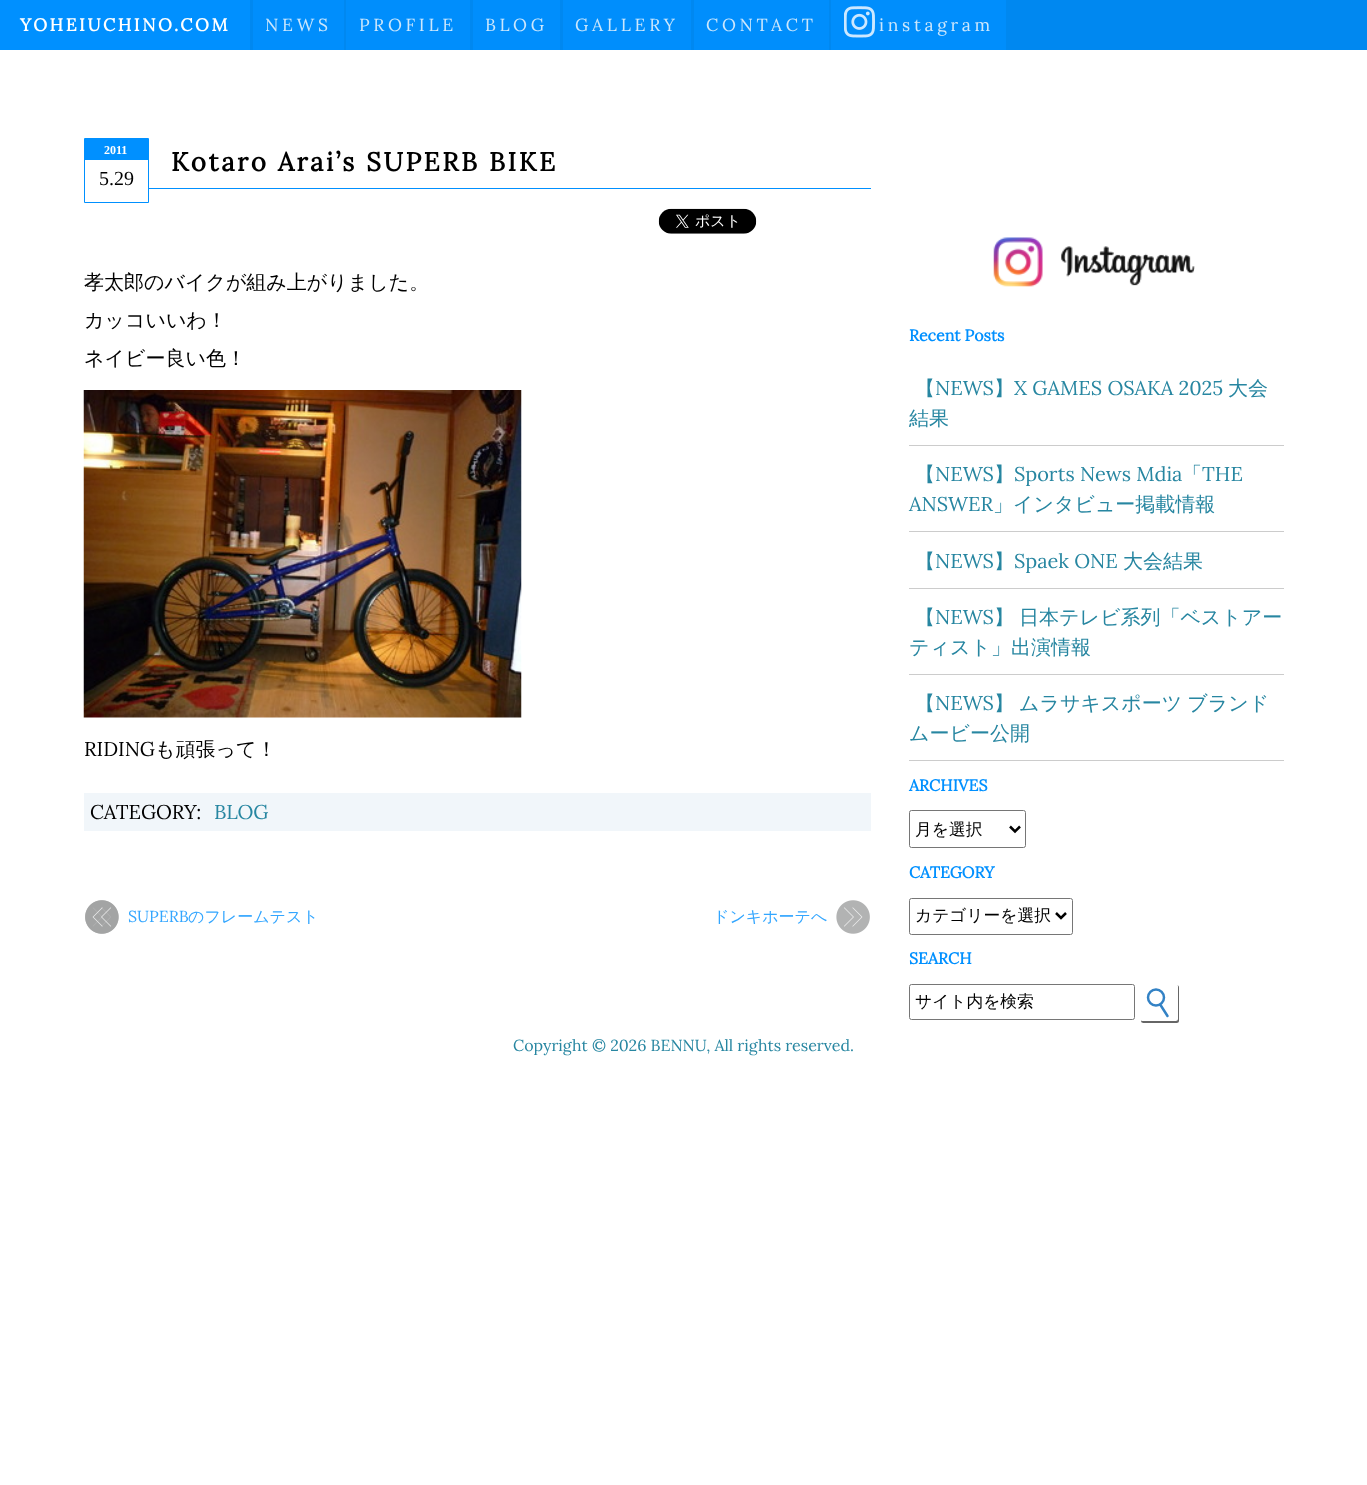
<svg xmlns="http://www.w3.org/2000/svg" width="1367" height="1485">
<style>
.a{font:bold 17.5px Lora;letter-spacing:2.5px;fill:#fff}
.b{font:17.5px Lora;letter-spacing:3.75px;fill:#cce7fc}
.c{font:bold 12px Liberation Serif;fill:#fff}
.d{font:20px Liberation Serif;fill:#000}
.e{font:bold 26px Lora;letter-spacing:2.5px;fill:#000}
.f{font:500 20px WenQuanYi Zen Hei;fill:#000}
.g{font:20px Lora;fill:#000}
.h{font:20px Lora;fill:#2786a1}
.i{font:16px Lora;fill:#33a6ff}
.j{font:500 16px WenQuanYi Zen Hei;fill:#33a6ff}
.k{font:bold 16px Lora;fill:#0090ff}
.l{font:500 20px WenQuanYi Zen Hei;fill:#2786a1}
.m{font:500 16.75px WenQuanYi Zen Hei;fill:#000}
.n{font:16px Lora;fill:#2786a1}
</style>
<rect width="100%" height="100%" fill="#fff"/>
<path fill="#0088f0" d="M250 0h1117v50H250z"/>
<path fill="#0090ff" d="M0 0h250v50H0z"/>
<path fill="#008efc" d="M253 0h91v50H253z"/>
<path fill="#008efc" d="M346 0h124v50H346z"/>
<path fill="#008efc" d="M473 0h87v50H473z"/>
<path fill="#008efc" d="M563 0h128v50H563z"/>
<path fill="#008efc" d="M694 0h135v50H694z"/>
<path fill="#008efc" d="M831 0h175v50H831z"/>
<image href="1.png" x="844" y="6" width="31" height="32"/>
<path fill="none" stroke="#0090ff" d="M84.5 138.5h64v64H84.5z"/>
<path fill="#0090ff" d="M85 139h63v21H85z"/>
<path fill="#0090ff" d="M149 188h722v1H149z"/>
<image href="2.png" x="658" y="208" width="99" height="26"/>
<image href="3.png" x="83" y="390" width="439" height="328"/>
<path fill="#f1f6fa" d="M84 793h787v38H84z"/>
<image href="4.png" x="85" y="900" width="34" height="34"/>
<image href="5.png" x="836" y="900" width="34" height="34"/>
<image href="6.png" x="993" y="237" width="202" height="50"/>
<path fill="#ccc" d="M909 445h375v1H909z"/>
<path fill="#ccc" d="M909 531h375v1H909z"/>
<path fill="#ccc" d="M909 588h375v1H909z"/>
<path fill="#ccc" d="M909 674h375v1H909z"/>
<path fill="#ccc" d="M909 760h375v1H909z"/>
<rect fill="none" stroke="#767676" x="909.5" y="810.5" width="116" height="37" rx="2"/>
<path fill="none" stroke="#000" stroke-width="2.5" d="M1010 826.5l5 5l5-5"/>
<rect fill="none" stroke="#767676" x="909.5" y="898.5" width="163" height="36" rx="2"/>
<path fill="none" stroke="#000" stroke-width="2.5" d="M1056 913l5 5l5-5"/>
<rect fill="none" stroke="#767676" x="909.5" y="984.5" width="225" height="35" rx="2"/>
<rect fill="#666" filter="blur(0.5px)" x="1141" y="985" width="38" height="38" rx="2.5"/>
<rect fill="#fff" x="1140" y="984" width="38" height="37" rx="2.5"/>
<circle fill="none" stroke="#3382c5" stroke-width="2.5" cx="1156" cy="997.5" r="8"/>
<path fill="none" stroke="#3382c5" stroke-width="2.5" stroke-linecap="round" d="M1160.5 1005l7 11"/>
<text class="a" x="20" y="31">YOHEIUCHINO.COM</text>
<text class="b" x="265" y="31">NEWS</text>
<text class="b" x="359" y="31">PROFILE</text>
<text class="b" x="485" y="31">BLOG</text>
<text class="b" x="575" y="31">GALLERY</text>
<text class="b" x="706" y="31">CONTACT</text>
<text class="b" x="879" y="31">instagram</text>
<text class="c" x="104" y="154">2011</text>
<text class="d" x="99" y="185">5.29</text>
<text class="e" x="171" y="171">Kotaro Arai’s SUPERB BIKE</text>
<text class="f" x="84" y="289">孝太郎のバイクが組み上がりました。</text>
<text class="f" x="84" y="327">カッコいいわ！</text>
<text class="f" x="84" y="365">ネイビー良い色！</text>
<text class="g" x="84" y="756">RIDING</text>
<text class="f" x="155" y="756">も頑張って！</text>
<text class="g" x="90" y="819">CATEGORY:</text>
<text class="h" x="214" y="819">BLOG</text>
<text class="i" x="128" y="922">SUPERB</text>
<text class="j" x="188" y="922">のフレームテスト</text>
<text class="j" x="713" y="922">ドンキホーテへ</text>
<text class="k" x="909" y="341">Recent Posts</text>
<text class="l" x="915" y="395">【</text>
<text class="h" x="935" y="395">NEWS</text>
<text class="l" x="994" y="395">】</text>
<text class="h" x="1014" y="395">X GAMES OSAKA 2025</text>
<text class="l" x="1228" y="395">大会</text>
<text class="l" x="909" y="425">結果</text>
<text class="l" x="915" y="481">【</text>
<text class="h" x="935" y="481">NEWS</text>
<text class="l" x="994" y="481">】</text>
<text class="h" x="1014" y="481">Sports News Mdia</text>
<text class="l" x="1182" y="481">「</text>
<text class="h" x="1202" y="481">THE</text>
<text class="h" x="909" y="511">ANSWER</text>
<text class="l" x="993" y="511">」インタビュー掲載情報</text>
<text class="l" x="915" y="568">【</text>
<text class="h" x="935" y="568">NEWS</text>
<text class="l" x="994" y="568">】</text>
<text class="h" x="1014" y="568">Spaek ONE</text>
<text class="l" x="1123" y="568">大会結果</text>
<text class="l" x="915" y="624">【</text>
<text class="h" x="935" y="624">NEWS</text>
<text class="l" x="994" y="624" word-spacing="-1">】 日本テレビ系列「ベストアー</text>
<text class="l" x="909" y="654">ティスト」出演情報</text>
<text class="l" x="915" y="710">【</text>
<text class="h" x="935" y="710">NEWS</text>
<text class="l" x="994" y="710" word-spacing="-1">】 ムラサキスポーツ ブランド</text>
<text class="l" x="909" y="740">ムービー公開</text>
<text class="k" x="909" y="791">ARCHIVES</text>
<text class="m" x="915" y="835">月を選択</text>
<text class="k" x="909" y="878">CATEGORY</text>
<text class="m" x="915" y="921">カテゴリーを選択</text>
<text class="k" x="909" y="964">SEARCH</text>
<text class="m" x="915" y="1007">サイト内を検索</text>
<text class="n" x="513" y="1051">Copyright © 2026 BENNU, All rights reserved.</text>
</svg>
